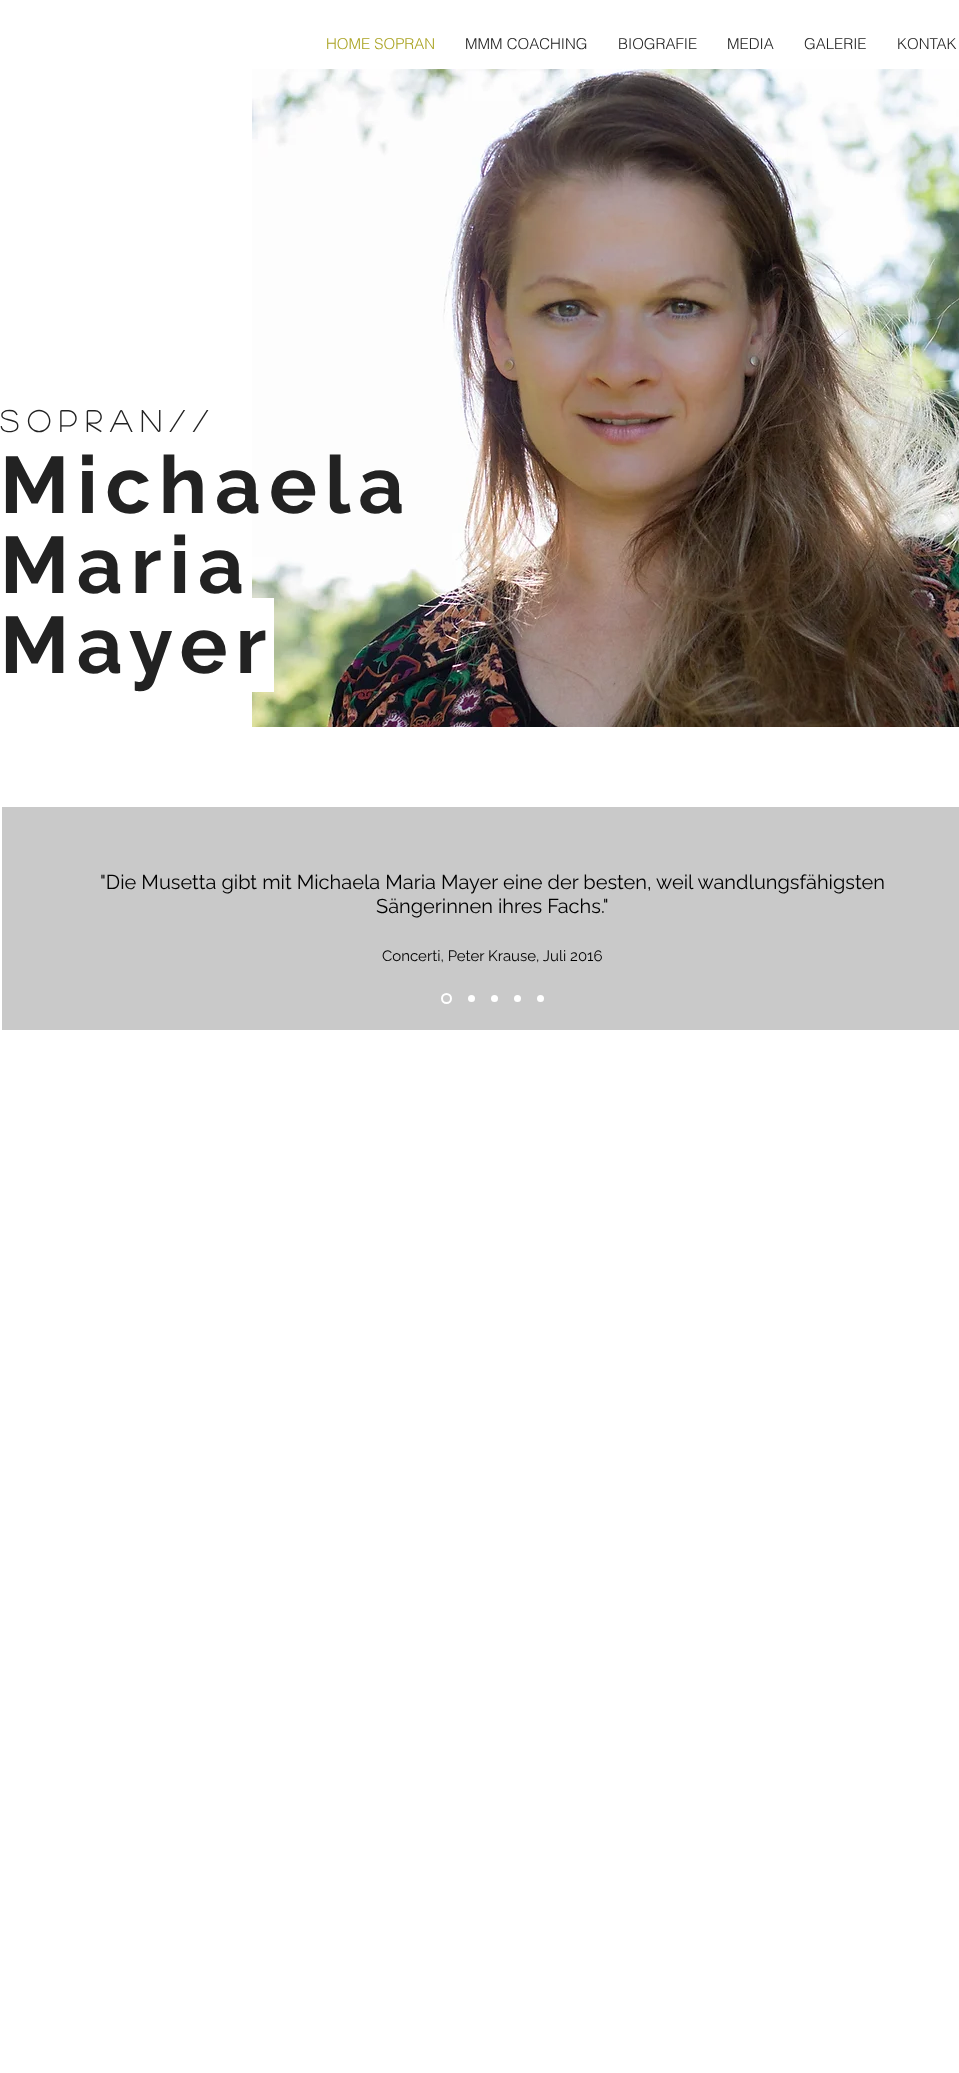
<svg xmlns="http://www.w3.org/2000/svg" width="959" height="2073">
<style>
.a{font:300 15px helvetica;fill:#aaa322}
.b{font:300 15px helvetica;fill:#222}
.c{font:bold 30px 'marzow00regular';letter-spacing:9px;fill:#222}
.d{font:bold 80px Raleway;letter-spacing:8px;fill:#222}
.e{font:20px Raleway;fill:#000}
.f{font:15px Raleway;fill:#000}
</style>
<rect width="100%" height="100%" fill="#fff"/>
<image href="1.png" x="252" y="69" width="707" height="658"/>
<path fill="#fff" d="M252 598h22v94H252z"/>
<path fill="#c9c9c9" d="M2 807h957v223H2z"/>
<circle fill="none" stroke="#fff" stroke-width="2" cx="446.5" cy="998.5" r="4.5"/>
<circle fill="#fff" cx="471.5" cy="998.5" r="3.5"/>
<circle fill="#fff" cx="494.5" cy="998.5" r="3.5"/>
<circle fill="#fff" cx="517.5" cy="998.5" r="3.5"/>
<circle fill="#fff" cx="540.5" cy="998.5" r="3.5"/>
<text class="a" x="326" y="49">HOME SOPRAN</text>
<text class="b" x="465" y="49">MMM COACHING</text>
<text class="b" x="618" y="49">BIOGRAFIE</text>
<text class="b" x="727" y="49">MEDIA</text>
<text class="b" x="804" y="49">GALERIE</text>
<text class="b" x="897" y="49">KONTAK</text>
<text class="c" x="0" y="432">Sopran//</text>
<text class="d" x="0" y="513">Michaela</text>
<text class="d" x="0" y="593">Maria</text>
<text class="d" x="0" y="673">Mayer</text>
<text class="e" x="100" y="889">"Die Musetta gibt mit Michaela Maria Mayer eine der besten, weil wandlungsfähigsten</text>
<text class="e" x="376" y="913">Sängerinnen ihres Fachs."</text>
<text class="f" x="382" y="961">Concerti, Peter Krause, Juli 2016</text>
</svg>
